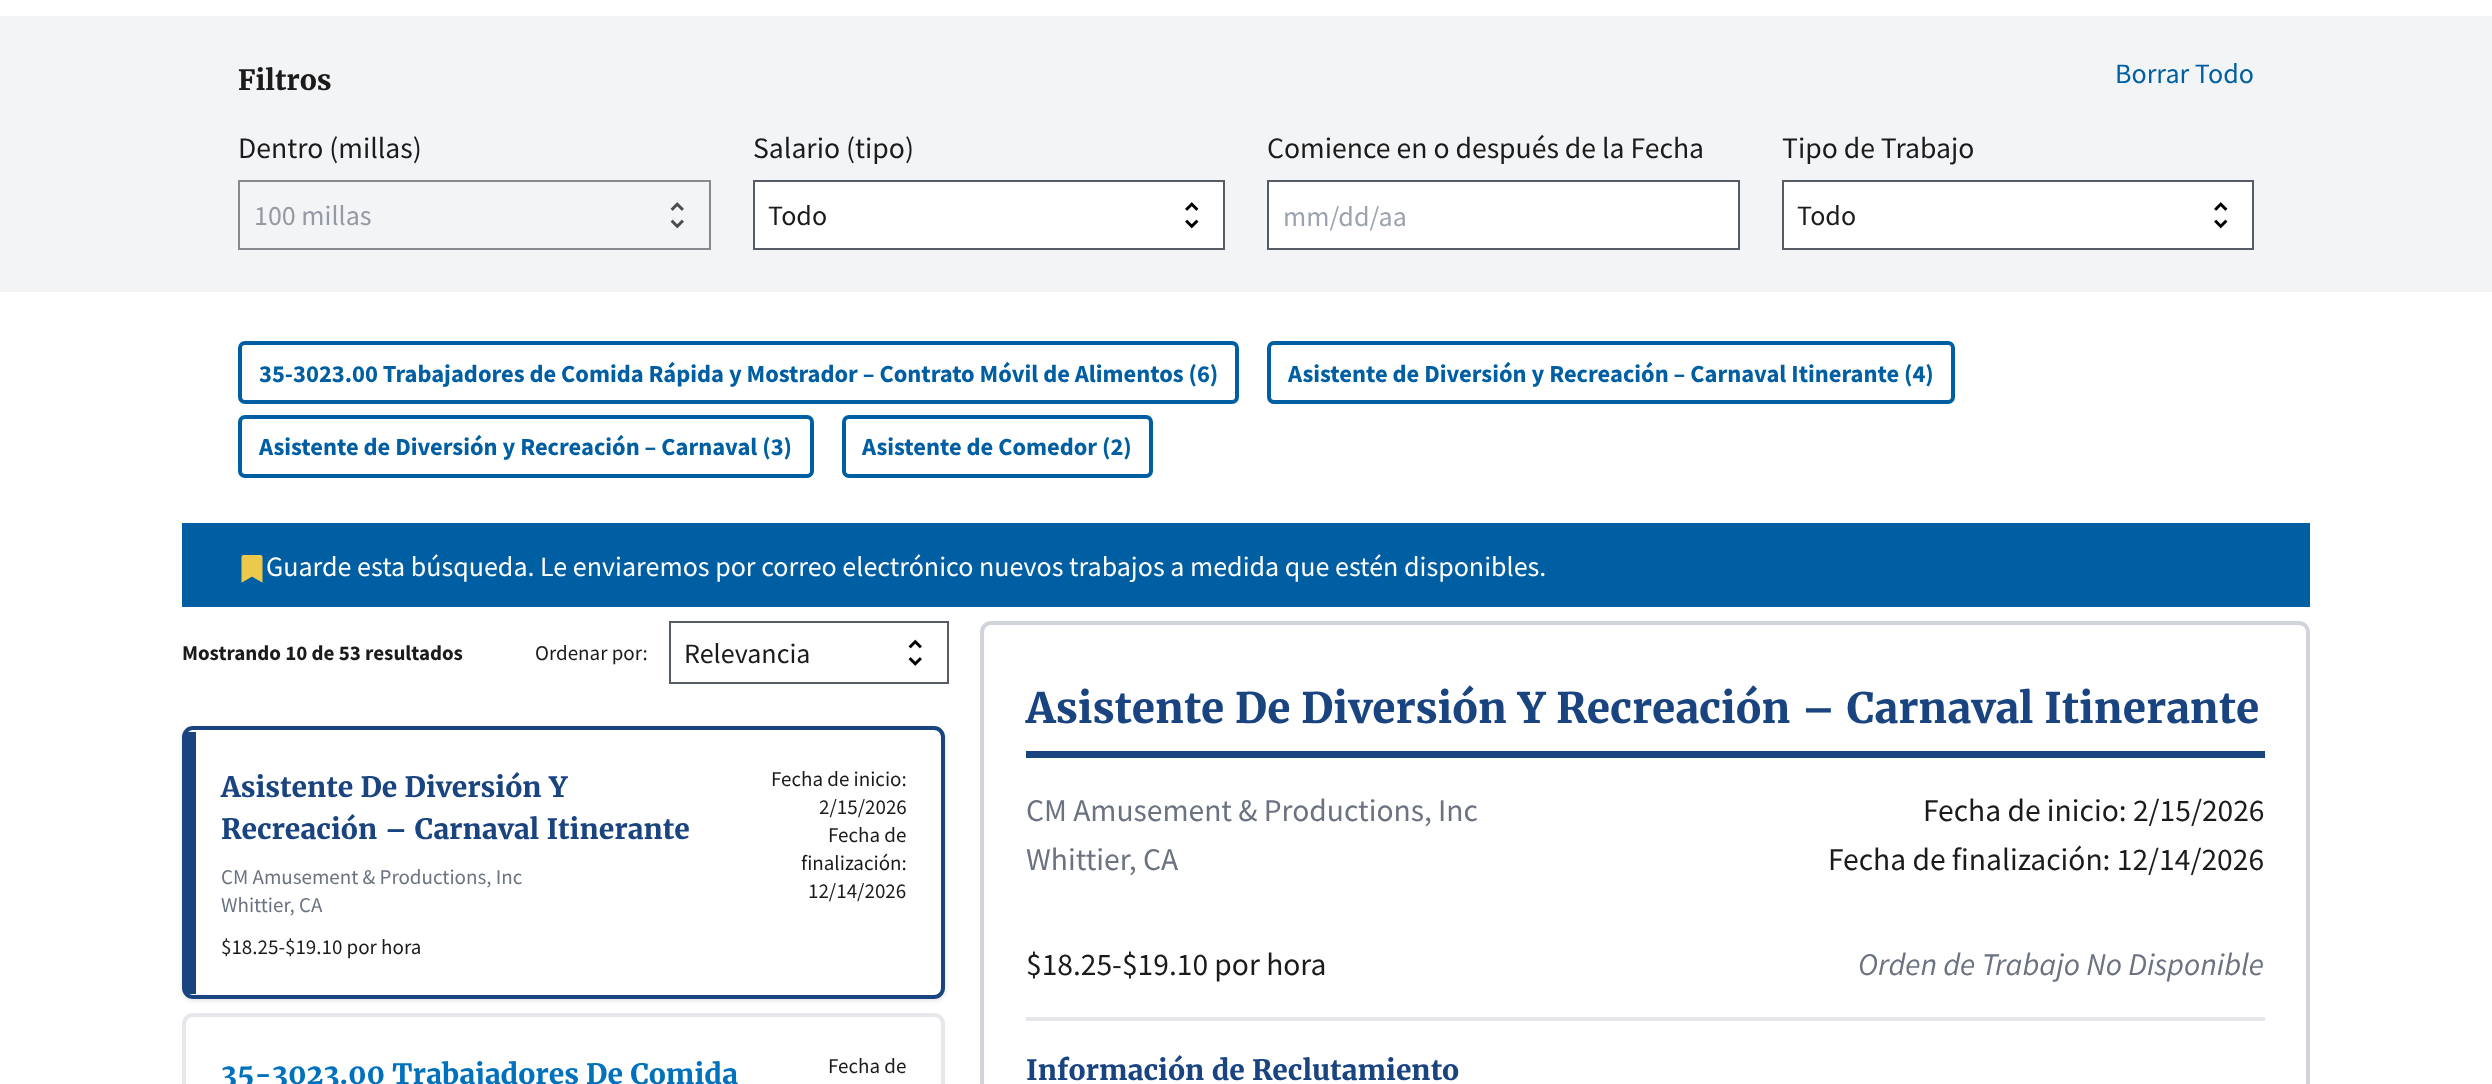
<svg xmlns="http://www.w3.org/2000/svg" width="2492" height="1084">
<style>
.a{font:bold 28px Merriweather;fill:#1b1b1b}
.b{font:28px Source Sans Pro;fill:#005ea2}
.c{font:29.7px Source Sans Pro;fill:#1b1b1b}
.d{font:28px Source Sans Pro;fill:#9499a3}
.e{font:28px Source Sans Pro;fill:#1b1b1b}
.f{font:28px Source Sans Pro;fill:#9ca3af}
.g{font:bold 24.5px Source Sans Pro;fill:#005ea2}
.h{font:28px Source Sans Pro;fill:#fff}
.i{font:bold 21px Source Sans Pro;fill:#1b1b1b}
.j{font:21px Source Sans Pro;fill:#1b1b1b}
.k{font:bold 28px Merriweather;fill:#1a4480}
.l{font:21px Source Sans Pro;fill:#6b7280}
.m{font:bold 28px Merriweather;fill:#0071bc}
.n{font:bold 42px Merriweather;fill:#1a4480}
.o{font:31.5px Source Sans Pro;fill:#6b7280}
.p{font:31.5px Source Sans Pro;fill:#1b1b1b}
.q{font:italic 31.5px Source Sans Pro;fill:#6b7280}
</style>
<defs>
<clipPath id="clip1"><path d="M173 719h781v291h-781zm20 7h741c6 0 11 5 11 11v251c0 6-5 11-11 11h-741c-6 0-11-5-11-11v-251c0-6 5-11 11-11z" clip-rule="evenodd"/></clipPath>
</defs>
<rect width="100%" height="100%" fill="#fff"/>
<path fill="#f3f4f6" d="M0 16h2492v276H0z"/>
<image href="1.png" x="670" y="202" width="14" height="27"/>
<path fill="none" stroke="#858a91" stroke-width="2" d="M239 181h471v68H239z"/>
<path fill="#fff" d="M755 182h468v66H755z"/>
<image href="2.png" x="1185" y="202" width="14" height="27"/>
<path fill="none" stroke="#565c65" stroke-width="2" d="M754 181h470v68H754z"/>
<path fill="#fff" stroke="#565c65" stroke-width="2" d="M1268 181h471v68H1268z"/>
<path fill="#fff" d="M1784 182h468v66H1784z"/>
<image href="2.png" x="2214" y="202" width="14" height="27"/>
<path fill="none" stroke="#565c65" stroke-width="2" d="M1783 181h470v68H1783z"/>
<rect fill="none" stroke="#005ea2" stroke-width="4" x="240" y="343" width="997" height="59" rx="5"/>
<rect fill="none" stroke="#005ea2" stroke-width="4" x="1269" y="343" width="684" height="59" rx="5"/>
<rect fill="none" stroke="#005ea2" stroke-width="4" x="240" y="417" width="572" height="59" rx="5"/>
<rect fill="none" stroke="#005ea2" stroke-width="4" x="844" y="417" width="307" height="59" rx="5"/>
<path fill="#005ea2" d="M182 523h2128v84H182z"/>
<image href="3.png" x="241" y="555" width="22" height="28"/>
<image href="4.png" x="908" y="639" width="14" height="27"/>
<path fill="none" stroke="#565c65" stroke-width="2" d="M670 622h278v61H670z"/>
<g clip-path="url(#clip1)">
<rect fill="#0000001a" filter="blur(2.5px)" x="182" y="728" width="763" height="273" rx="11"/>
</g>
<rect fill="none" stroke="#1a4480" stroke-width="4" x="184" y="728" width="759" height="269" rx="9"/>
<path fill="#1a4480" d="M186 732h10v262H186z"/>
<rect fill="none" stroke="#e5e7eb" stroke-width="4" x="184" y="1015" width="759" height="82" rx="9"/>
<rect fill="none" stroke="#d1d5db" stroke-width="4" x="982" y="623" width="1326" height="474" rx="9"/>
<path fill="#1a4480" d="M1026 751h1239v7H1026z"/>
<path fill="#e5e7eb" d="M1026 1017h1239v4H1026z"/>
<text class="a" x="238" y="90">Filtros</text>
<text class="b" x="2115" y="83">Borrar Todo</text>
<text class="c" x="238" y="158">Dentro (millas)</text>
<text class="d" x="254" y="225">100 millas</text>
<text class="c" x="753" y="158">Salario (tipo)</text>
<text class="e" x="768" y="225">Todo</text>
<text class="c" x="1267" y="158">Comience en o después de la Fecha</text>
<text class="f" x="1283" y="226">mm/dd/aa</text>
<text class="c" x="1782" y="158">Tipo de Trabajo</text>
<text class="e" x="1797" y="225">Todo</text>
<text class="g" x="259" y="382">35-3023.00 Trabajadores de Comida Rápida y Mostrador – Contrato Móvil de Alimentos (6)</text>
<text class="g" x="1288" y="382">Asistente de Diversión y Recreación – Carnaval Itinerante (4)</text>
<text class="g" x="259" y="455">Asistente de Diversión y Recreación – Carnaval (3)</text>
<text class="g" x="862" y="455">Asistente de Comedor (2)</text>
<text class="h" x="266" y="576">Guarde esta búsqueda. Le enviaremos por correo electrónico nuevos trabajos a medida que estén disponibles.</text>
<text class="i" x="182" y="660">Mostrando 10 de 53 resultados</text>
<text class="j" x="535" y="660">Ordenar por:</text>
<text class="e" x="684" y="663">Relevancia</text>
<text class="k" x="221" y="797">Asistente De Diversión Y</text>
<text class="k" x="221" y="839">Recreación – Carnaval Itinerante</text>
<text class="l" x="221" y="884">CM Amusement &amp; Productions, Inc</text>
<text class="l" x="221" y="912">Whittier, CA</text>
<text class="j" x="221" y="954">$18.25-$19.10 por hora</text>
<text class="j" x="771" y="786">Fecha de inicio:</text>
<text class="j" x="819" y="814">2/15/2026</text>
<text class="j" x="828" y="842">Fecha de</text>
<text class="j" x="801" y="870">finalización:</text>
<text class="j" x="808" y="898">12/14/2026</text>
<text class="m" x="221" y="1084">35-3023.00 Trabajadores De Comida</text>
<text class="j" x="828" y="1073">Fecha de</text>
<text class="n" x="1026" y="723">Asistente De Diversión Y Recreación – Carnaval Itinerante</text>
<text class="o" x="1026" y="821">CM Amusement &amp; Productions, Inc</text>
<text class="o" x="1026" y="870">Whittier, CA</text>
<text class="p" x="1026" y="975">$18.25-$19.10 por hora</text>
<text class="p" x="1923" y="821">Fecha de inicio: 2/15/2026</text>
<text class="p" x="1828" y="870">Fecha de finalización: 12/14/2026</text>
<text class="q" x="1858" y="975">Orden de Trabajo No Disponible</text>
<text class="k" x="1026" y="1080">Información de Reclutamiento</text>
</svg>
